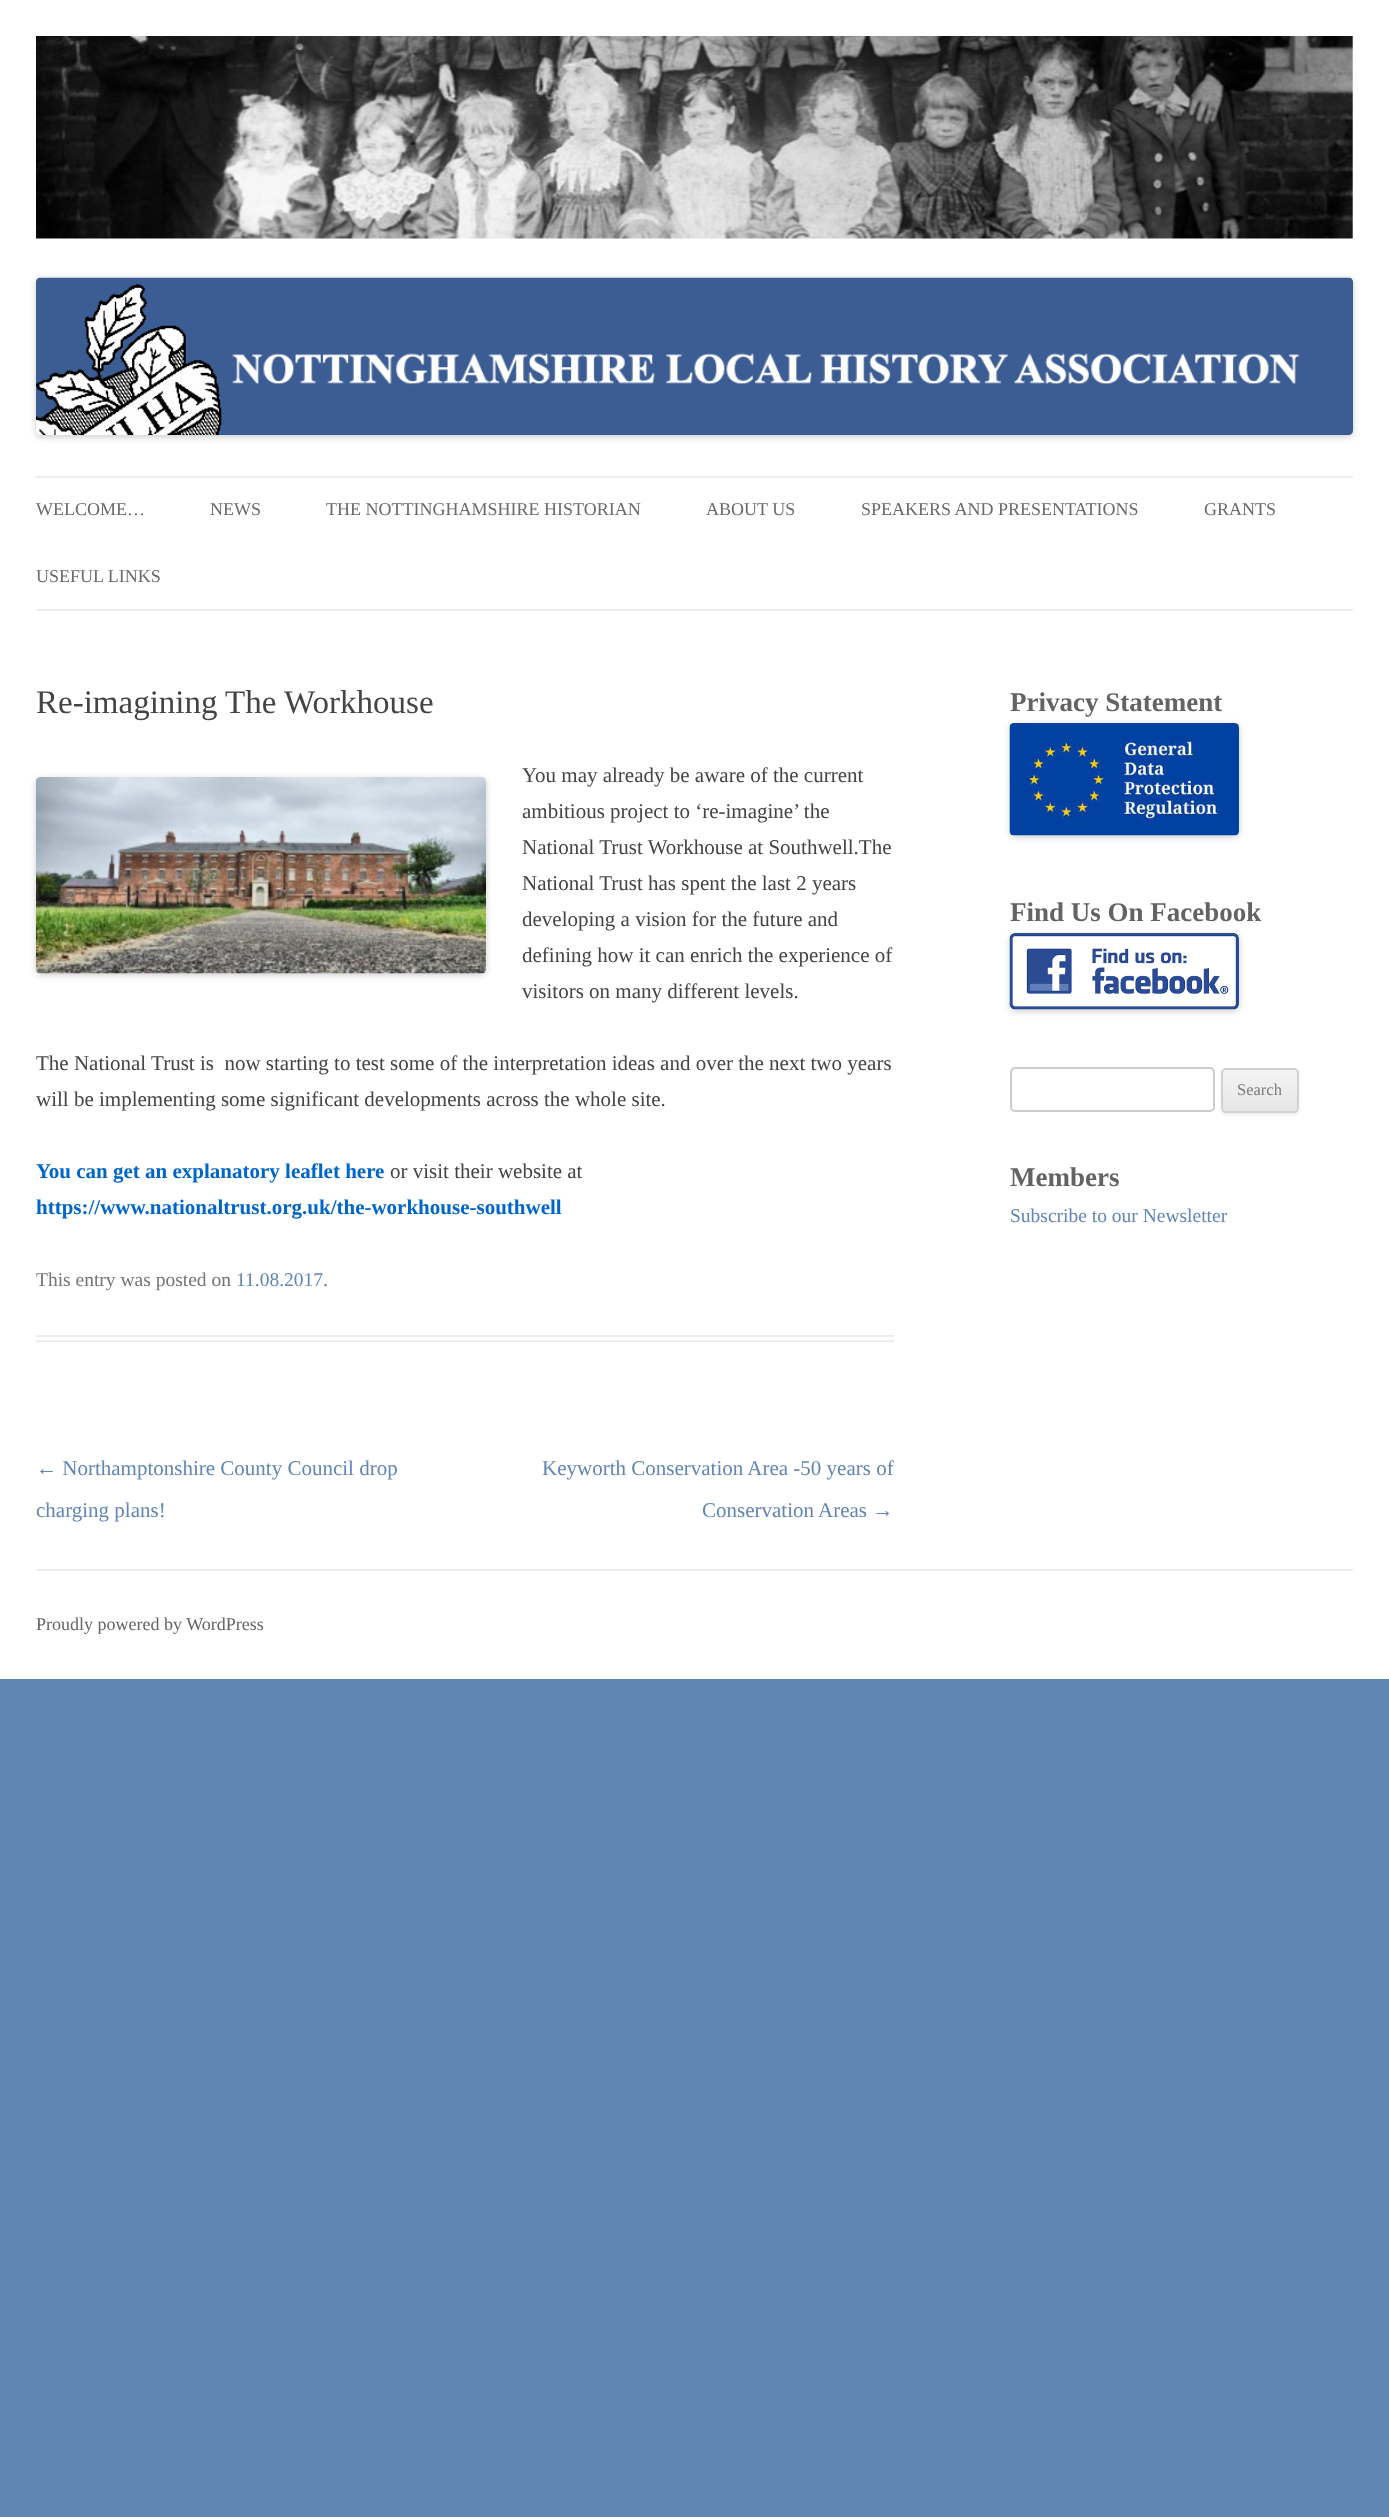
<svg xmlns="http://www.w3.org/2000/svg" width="1389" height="2517">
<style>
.a{font:18px Liberation Serif;fill:#6a6a6a}
.b{font:33px Liberation Serif;fill:#444}
.c{font:21px Liberation Serif;fill:#444}
.d{font:bold 21px Liberation Serif;fill:#06c}
.e{font:19.5px Liberation Serif;fill:#757575}
.f{font:19.5px Liberation Serif;fill:#6185b5}
.g{font:21px Liberation Serif;fill:#6185b5}
.h{font:bold 27px Liberation Serif;fill:#636363}
.i{font:16.5px Liberation Serif;fill:#7c7c7c}
.j{font:18px Liberation Serif;fill:#636363}
</style>
<defs>
<clipPath id="clip1"><rect x="1221" y="1068" width="78" height="45" rx="5"/></clipPath>
<linearGradient id="g1" gradientUnits="userSpaceOnUse" x1="1260" y1="1070" x2="1260" y2="1112"><stop offset="0" stop-color="#f4f4f4"/><stop offset="1" stop-color="#e6e6e6"/></linearGradient>
</defs>
<rect width="100%" height="100%" fill="#6185b5"/>
<path fill="#fff" d="M0 0h1389v1679H0z"/>
<image href="1.png" x="36" y="36" width="1317" height="203"/>
<rect fill="#00000033" filter="blur(3px)" x="36" y="279" width="1317" height="158" rx="5"/>
<image href="2.png" x="36" y="277" width="1317" height="158"/>
<path fill="#ededed" d="M36 476h1317v2H36z"/>
<path fill="#ededed" d="M36 609h1317v2H36z"/>
<path fill="#ededed" d="M36 1335h858v2H36z"/>
<path fill="#ededed" d="M36 1340h858v2H36z"/>
<rect fill="#00000033" filter="blur(3px)" x="36" y="779" width="450" height="196" rx="5"/>
<image href="3.png" x="36" y="777" width="450" height="197"/>
<rect fill="#00000033" filter="blur(3px)" x="1010" y="725" width="229" height="112" rx="5"/>
<image href="4.png" x="1009" y="723" width="230" height="113"/>
<rect fill="#00000033" filter="blur(3px)" x="1010" y="935" width="229" height="76" rx="5"/>
<image href="5.png" x="1009" y="933" width="230" height="77"/>
<rect fill="none" stroke="#ccc" stroke-width="2" x="1011" y="1068" width="203" height="43" rx="4"/>
<rect fill="#4040401a" filter="blur(1.5px)" x="1221" y="1070" width="78" height="45" rx="5"/>
<g clip-path="url(#clip1)">
<path fill="url(#g1)" d="M1221 1070h78v42H1221z"/>
</g>
<rect fill="none" stroke="#d2d2d2" stroke-width="2" x="1222" y="1069" width="76" height="43" rx="4"/>
<path fill="#ededed" d="M36 1569h1317v2H36z"/>
<text class="a" x="36" y="515">WELCOME…</text>
<text class="a" x="210" y="515">NEWS</text>
<text class="a" x="326" y="515">THE NOTTINGHAMSHIRE HISTORIAN</text>
<text class="a" x="706" y="515">ABOUT US</text>
<text class="a" x="861" y="515">SPEAKERS AND PRESENTATIONS</text>
<text class="a" x="1204" y="515">GRANTS</text>
<text class="a" x="36" y="582">USEFUL LINKS</text>
<text class="b" x="36" y="713">Re-imagining The Workhouse</text>
<text class="c" x="522" y="782">You may already be aware of the current</text>
<text class="c" x="522" y="818">ambitious project to ‘re-imagine’ the</text>
<text class="c" x="522" y="854">National Trust Workhouse at Southwell.The</text>
<text class="c" x="522" y="890">National Trust has spent the last 2 years</text>
<text class="c" x="522" y="926">developing a vision for the future and</text>
<text class="c" x="522" y="962">defining how it can enrich the experience of</text>
<text class="c" x="522" y="998">visitors on many different levels.</text>
<text class="c" xml:space="preserve" x="36" y="1070">The National Trust is  now starting to test some of the interpretation ideas and over the next two years</text>
<text class="c" x="36" y="1106">will be implementing some significant developments across the whole site.</text>
<text class="d" x="36" y="1178">You can get an explanatory leaflet here</text>
<text class="c" x="390" y="1178">or visit their website at</text>
<text class="d" x="36" y="1214">https://www.nationaltrust.org.uk/the-workhouse-southwell</text>
<text class="e" x="36" y="1286">This entry was posted on</text>
<text class="f" x="236" y="1286">11.08.2017</text>
<text class="e" x="323" y="1286">.</text>
<text class="g" x="36" y="1475">← Northamptonshire County Council drop</text>
<text class="g" x="36" y="1517">charging plans!</text>
<text class="g" x="542" y="1475">Keyworth Conservation Area -50 years of</text>
<text class="g" x="702" y="1517">Conservation Areas →</text>
<text class="h" x="1010" y="711">Privacy Statement</text>
<text class="h" x="1010" y="921">Find Us On Facebook</text>
<text class="i" x="1237" y="1095">Search</text>
<text class="h" x="1010" y="1186">Members</text>
<text class="f" x="1010" y="1222">Subscribe to our Newsletter</text>
<text class="j" x="36" y="1630">Proudly powered by WordPress</text>
</svg>
